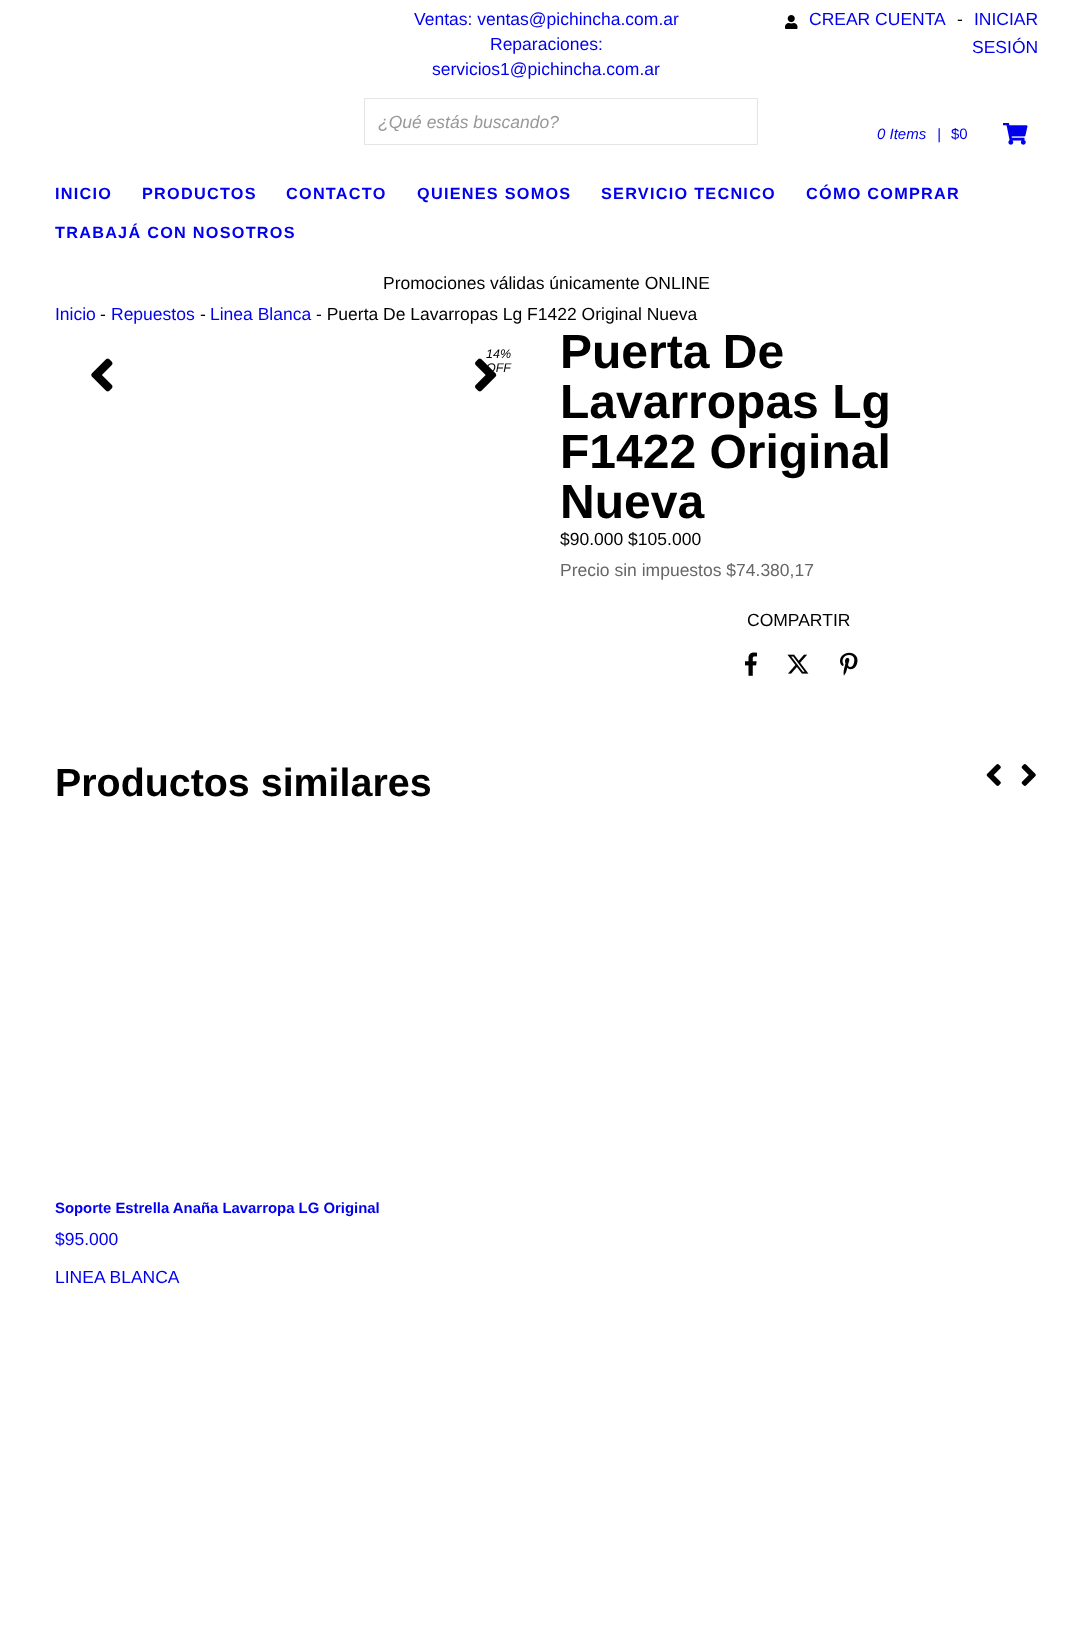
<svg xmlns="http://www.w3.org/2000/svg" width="1092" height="1640">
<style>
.a{font:17.5px Liberation Sans;fill:#00e}
.b{font:17.5px Liberation Sans;fill:#000}
.c{font:italic 17.5px Liberation Sans;fill:#999}
.d{font:italic 15px Liberation Sans;fill:#00e}
.e{font:15px Liberation Sans;fill:#00e}
.f{font:bold 16.25px Liberation Sans;letter-spacing:1.25px;fill:#00e}
.g{font:italic 12.5px Liberation Sans;fill:#000}
.h{font:bold 48px Liberation Sans;fill:#000}
.i{font:17.5px Liberation Sans;fill:#666}
.j{font:bold 39.4px Liberation Sans;fill:#000}
.k{font:bold 14.9px Liberation Sans;fill:#00e}
</style>
<defs>
<clipPath id="clip1"><path d="M378 111h323v20H378z"/></clipPath>
</defs>
<rect width="100%" height="100%" fill="#fff"/>
<image href="1.png" x="785" y="15" width="13" height="14"/>
<path fill="none" stroke="#e5e5e5" d="M364.5 98.5h393v46H364.5z"/>
<image href="2.png" x="1003" y="123" width="25" height="22"/>
<image href="3.png" x="91" y="358" width="22" height="34"/>
<image href="4.png" x="475" y="358" width="22" height="34"/>
<image href="5.png" x="745" y="652" width="12" height="24"/>
<image href="6.png" x="787" y="654" width="22" height="20"/>
<image href="7.png" x="840" y="652" width="18" height="24"/>
<image href="8.png" x="986" y="764" width="15" height="22"/>
<image href="9.png" x="1021" y="764" width="15" height="22"/>
<text class="a" x="414" y="25">Ventas: ventas@pichincha.com.ar</text>
<text class="a" x="490" y="50">Reparaciones:</text>
<text class="a" x="432" y="75">servicios1@pichincha.com.ar</text>
<text class="a" x="809" y="25">CREAR CUENTA</text>
<text class="b" x="957" y="25">-</text>
<text class="a" x="974" y="25">INICIAR</text>
<text class="a" x="972" y="53">SESIÓN</text>
<g clip-path="url(#clip1)">
<text class="c" x="378" y="128">¿Qué estás buscando?</text>
</g>
<text class="d" x="877" y="139">0 Items</text>
<text class="d" x="937" y="139">|</text>
<text class="e" x="951" y="139">$0</text>
<text class="f" x="55" y="199">INICIO</text>
<text class="f" x="142" y="199">PRODUCTOS</text>
<text class="f" x="286" y="199">CONTACTO</text>
<text class="f" x="417" y="199">QUIENES SOMOS</text>
<text class="f" x="601" y="199">SERVICIO TECNICO</text>
<text class="f" x="806" y="199">CÓMO COMPRAR</text>
<text class="f" x="55" y="238">TRABAJÁ CON NOSOTROS</text>
<text class="b" x="383" y="289">Promociones válidas únicamente ONLINE</text>
<text class="a" x="55" y="320">Inicio</text>
<text class="b" x="100" y="320">-</text>
<text class="a" x="111" y="320">Repuestos</text>
<text class="b" x="200" y="320">-</text>
<text class="a" x="210" y="320">Linea Blanca</text>
<text class="b" x="316" y="320">- Puerta De Lavarropas Lg F1422 Original Nueva</text>
<text class="g" x="486" y="358">14%</text>
<text class="g" x="486" y="372">OFF</text>
<text class="h" x="560" y="368">Puerta De</text>
<text class="h" x="560" y="418">Lavarropas Lg</text>
<text class="h" x="560" y="468">F1422 Original</text>
<text class="h" x="560" y="518">Nueva</text>
<text class="b" x="560" y="545">$90.000 $105.000</text>
<text class="i" x="560" y="576">Precio sin impuestos $74.380,17</text>
<text class="b" x="747" y="626">COMPARTIR</text>
<text class="j" x="55" y="796">Productos similares</text>
<text class="k" x="55" y="1213">Soporte Estrella Anaña Lavarropa LG Original</text>
<text class="a" x="55" y="1245">$95.000</text>
<text class="a" x="55" y="1283">LINEA BLANCA</text>
</svg>
